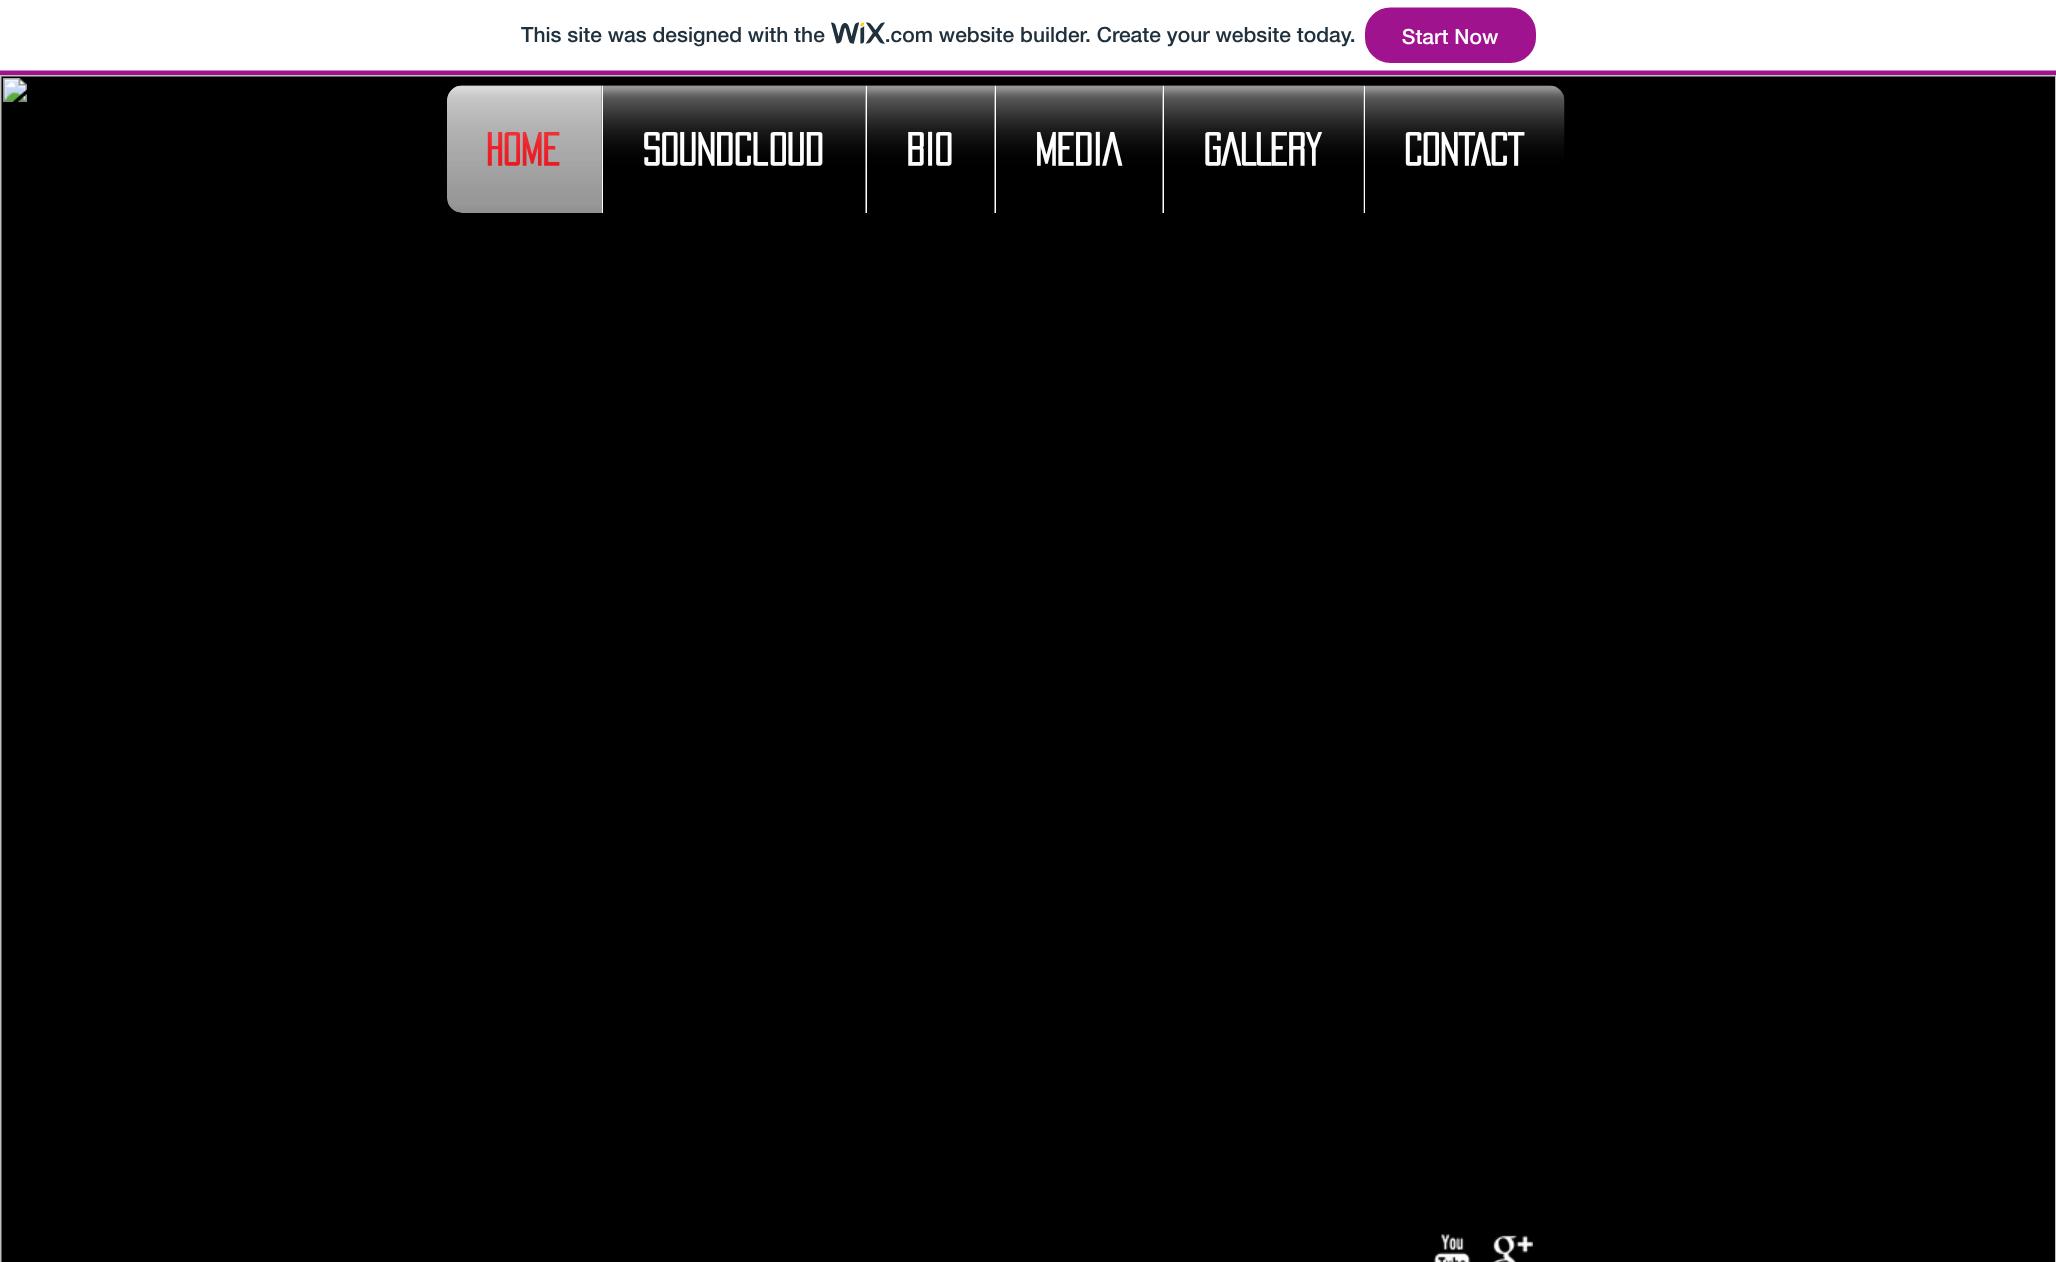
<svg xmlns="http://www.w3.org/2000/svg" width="2056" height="1262">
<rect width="100%" height="100%" fill="#fff"/>
<image href="1.png" x="0" y="7" width="2056" height="1255"/>
</svg>
